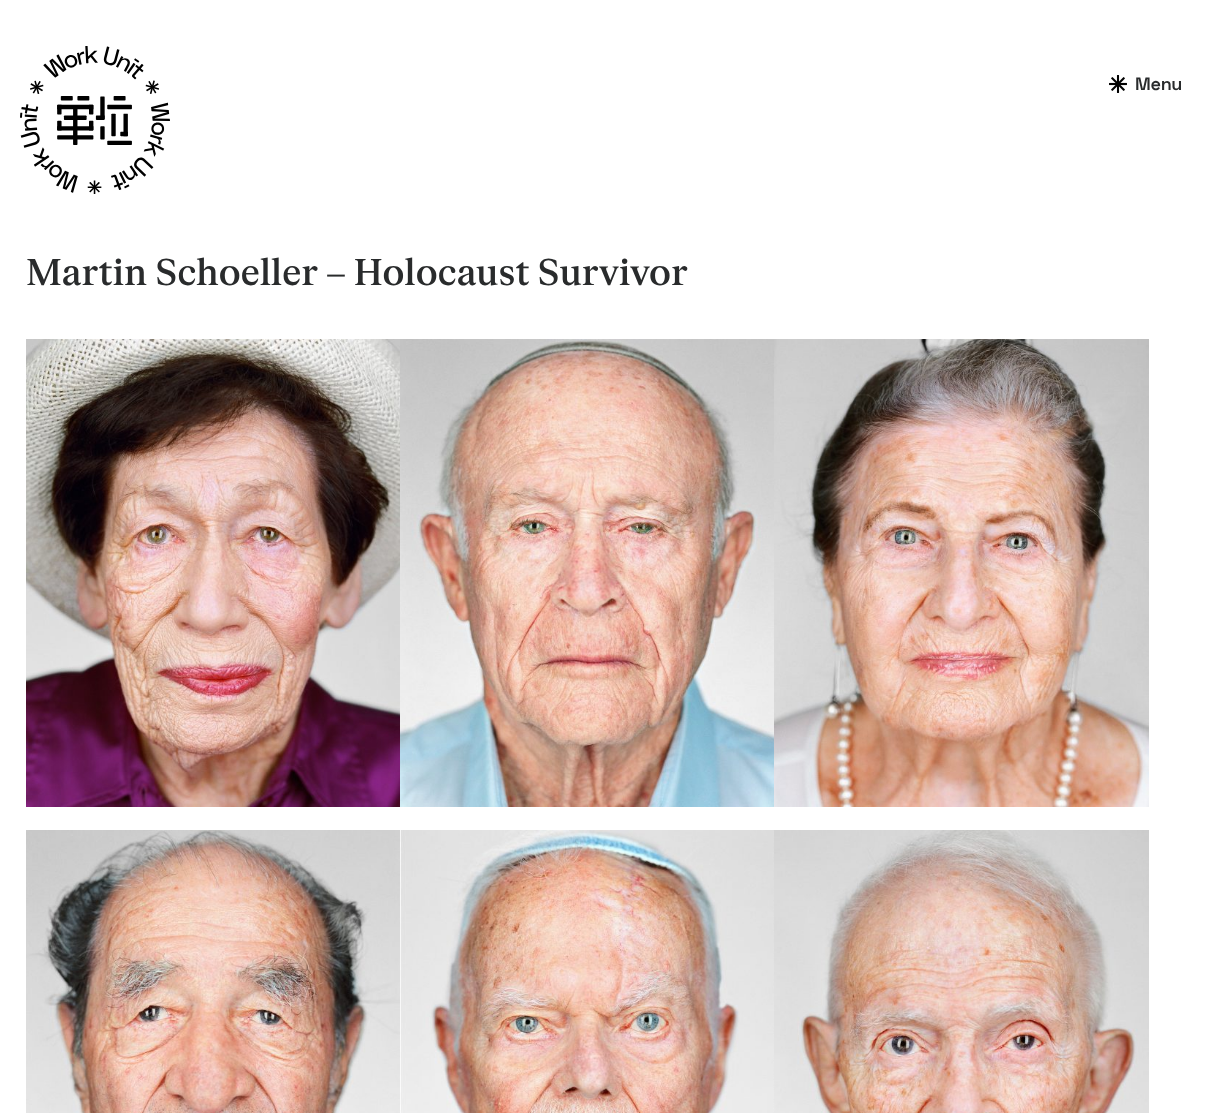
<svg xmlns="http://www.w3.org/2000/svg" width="1221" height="1113">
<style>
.a{font:600 18px Space Grotesk;letter-spacing:-0.3px;fill:#292b2c}
.b{font:500 36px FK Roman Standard;letter-spacing:-0.3px;fill:#292b2c}
</style>
<rect width="100%" height="100%" fill="#fff"/>
<image href="1.png" x="20" y="46" width="150" height="148"/>
<image href="2.png" x="1109" y="75" width="18" height="18"/>
<image href="3.png" x="26" y="339" width="374" height="468"/>
<image href="4.png" x="400" y="339" width="374" height="468"/>
<image href="5.png" x="774" y="339" width="375" height="468"/>
<image href="6.png" x="26" y="830" width="374" height="283"/>
<image href="7.png" x="400" y="830" width="374" height="283"/>
<image href="8.png" x="774" y="830" width="375" height="283"/>
<text class="a" x="1135" y="90">Menu</text>
<text class="b" x="26" y="285">Martin Schoeller – Holocaust Survivor</text>
</svg>
